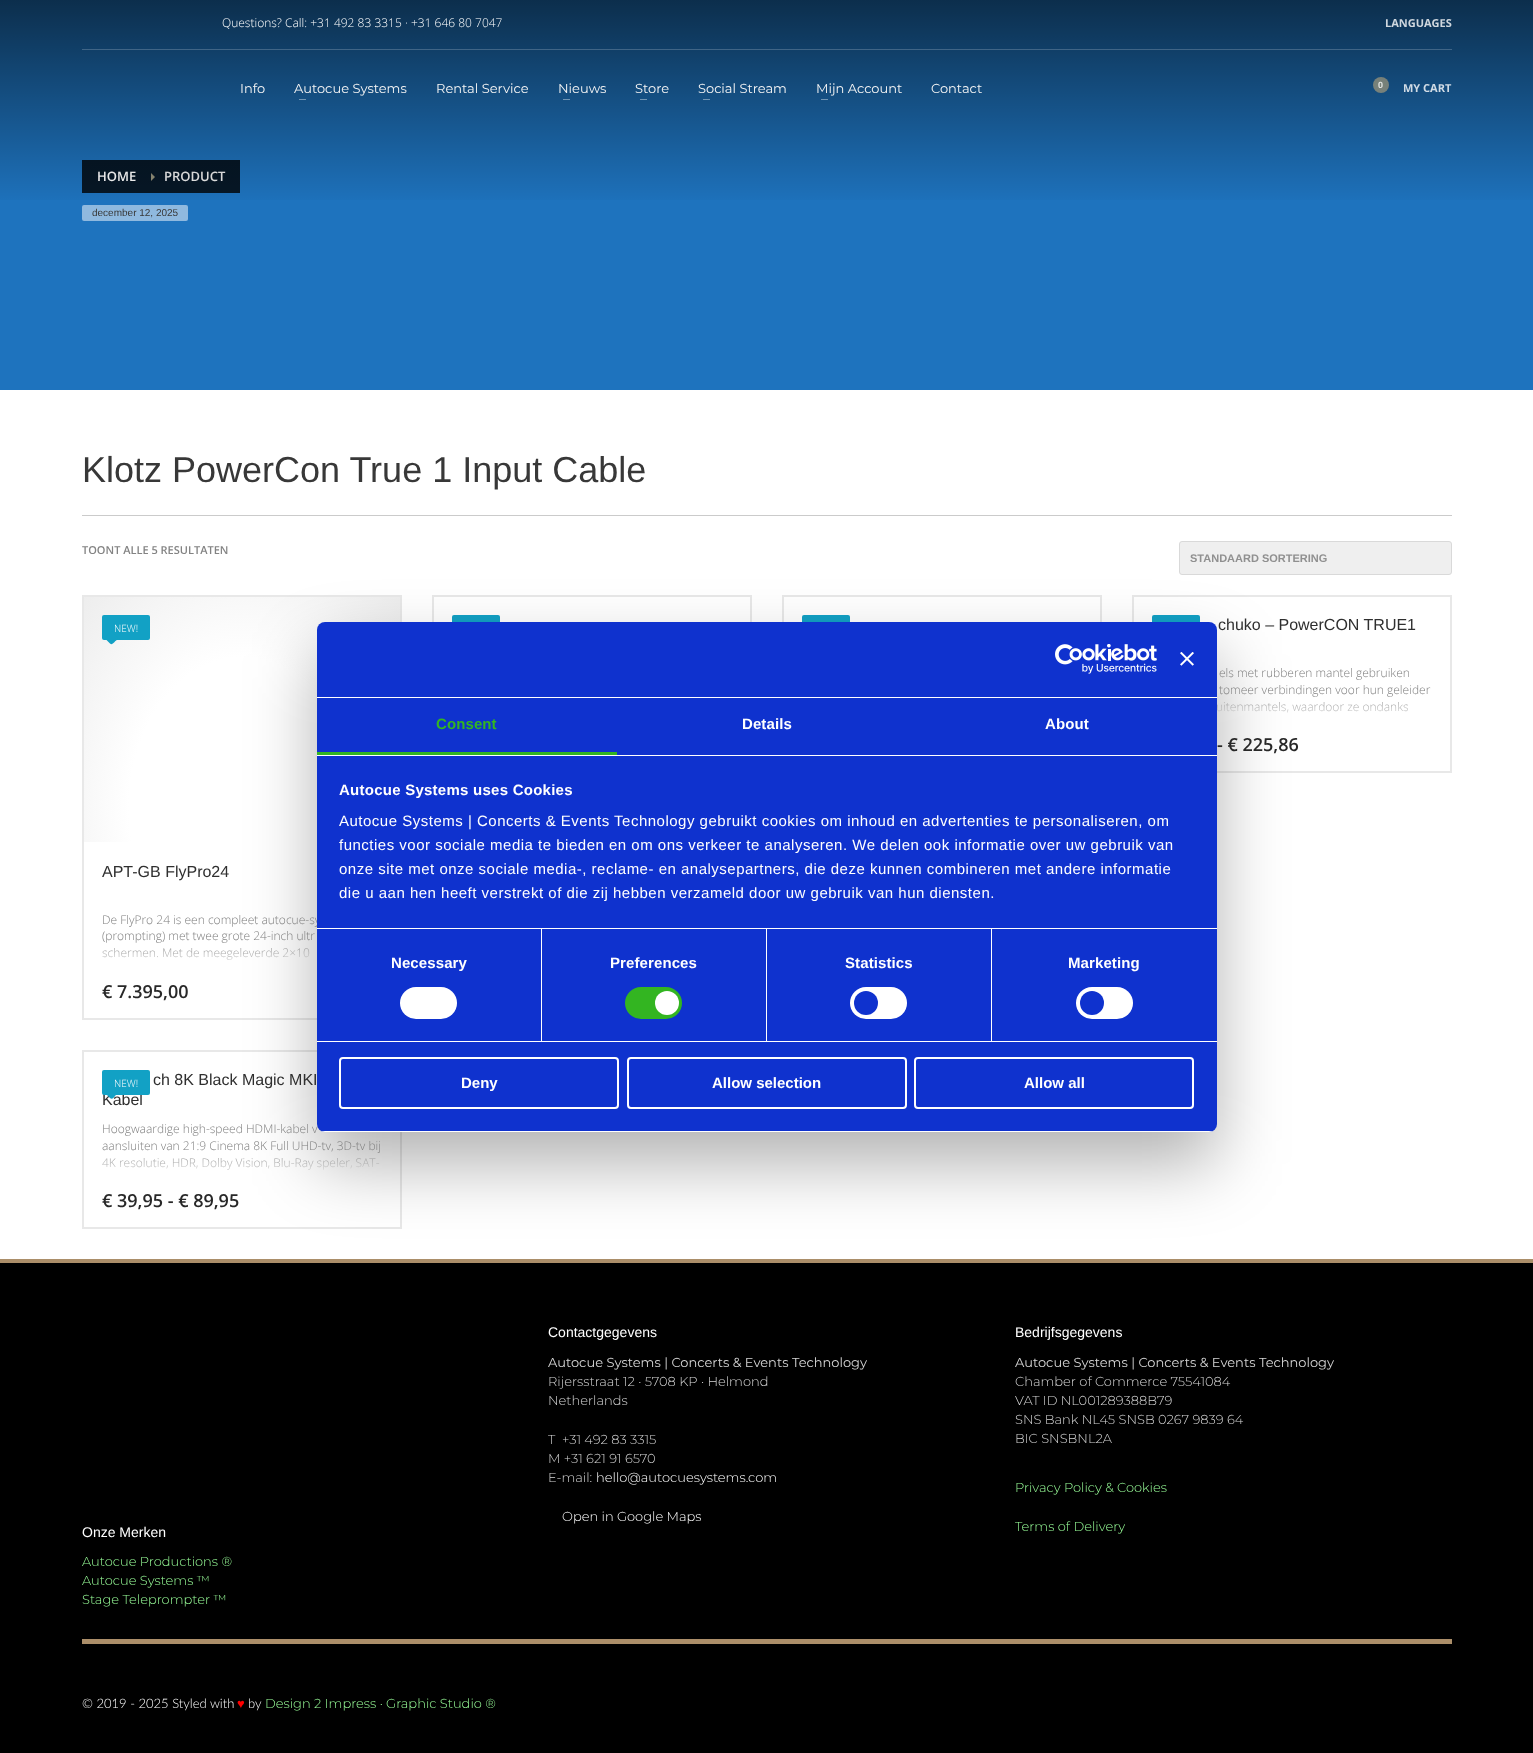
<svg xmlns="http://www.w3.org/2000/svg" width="1533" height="1753">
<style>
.a{font:600 13px Open Sans;fill:#fff}
.b{font:600 13px Open Sans;fill:#eee}
.c{font:13px Montserrat;fill:#f5f5f5}
.d{font:bold 9px Liberation Sans;fill:#e4e6e4}
.e{font:bold 11px Open Sans;fill:#d0dbe5}
.f{font:bold 11px Open Sans;fill:#cfd7de}
.g{font:300 12px Open Sans;fill:#fff}
.h{font:10px Liberation Sans;fill:#383838}
.i{font:36px Liberation Sans;fill:#383838}
.j{font:600 11px Open Sans;fill:#838383}
.k{font:bold 11px Liberation Sans;fill:#909090}
.l{font:300 10px Open Sans;fill:#fff}
.m{font:16px Liberation Sans;fill:#2f2f2f}
.n{font:300 12px Open Sans;fill:url(#g1)}
.o{font:600 18px Open Sans;fill:#282828}
.p{font:300 12px Open Sans;fill:url(#g2)}
.q{font:300 12px Open Sans;fill:url(#g3)}
.r{font:14px Liberation Sans;fill:#fff}
.s{font:13px Montserrat;fill:#d5d5d5}
.t{font:300 13px Montserrat;fill:#d5d5d5}
.u{font:300 13px Montserrat;fill:#fff}
.v{font:300 13px Montserrat;fill:#9f9}
.w{font:300 13px Lato;fill:#fff}
.x{font:13px Liberation Serif;fill:#f00}
.y{font:bold 15px Liberation Sans;letter-spacing:0.1px;fill:#33b521}
.z{font:bold 15px Liberation Sans;letter-spacing:0.1px;fill:#fff}
.a1{font:bold 15px Liberation Sans;letter-spacing:0.25px;fill:#fff}
.b1{font:15px Liberation Sans;letter-spacing:0.5px;fill:#fff}
.c1{font:bold 15px Liberation Sans;fill:#fff}
</style>
<defs>
<linearGradient id="g1" gradientUnits="userSpaceOnUse" x1="242" y1="912" x2="242" y2="972"><stop offset="0.5" stop-color="#808080"/><stop offset="1" stop-color="#fff"/></linearGradient>
<linearGradient id="g2" gradientUnits="userSpaceOnUse" x1="1292" y1="665" x2="1292" y2="725"><stop offset="0.5" stop-color="#808080"/><stop offset="1" stop-color="#fff"/></linearGradient>
<linearGradient id="g3" gradientUnits="userSpaceOnUse" x1="242" y1="1121" x2="242" y2="1181"><stop offset="0.5" stop-color="#808080"/><stop offset="1" stop-color="#fff"/></linearGradient>
<radialGradient id="g4" gradientUnits="userSpaceOnUse" cx="0" cy="0" r="1" gradientTransform="matrix(226 0 0 301 242 808)"><stop offset="0" stop-color="#fff"/><stop offset="0.5" stop-color="#fff"/><stop offset="1" stop-color="#ededed"/></radialGradient>
<linearGradient id="g5" gradientUnits="userSpaceOnUse" x1="767" y1="0" x2="767" y2="207"><stop offset="0" stop-color="#000" stop-opacity="0.6"/><stop offset="1" stop-color="#000" stop-opacity="0"/></linearGradient>
<clipPath id="clip1"><rect x="317" y="622" width="900" height="510" rx="8"/></clipPath>
</defs>
<rect width="100%" height="100%" fill="#fff"/>
<path fill="#1e73be" d="M0 0h1533v390H0z"/>
<path fill="#061726" d="M82 160h158v33H82z"/>
<path fill="#918f79" d="M151 181v-8l4 4z"/>
<rect fill="#8fb9df" x="82" y="205" width="106" height="16" rx="2"/>
<path fill="#cbcbcb" d="M82 515h1370v1H82z"/>
<rect fill="#efefef" stroke="#d9d9d9" x="1179.5" y="541.5" width="272" height="33" rx="2.5"/>
<path fill="url(#g4)" d="M84 597h316v245H84z"/>
<path fill="none" stroke="#e8e8e8" stroke-width="2" d="M83 596h318v423H83z"/>
<rect fill="#12a1c5" x="102" y="615" width="48" height="25" rx="2"/>
<path fill="none" stroke="#e8e8e8" stroke-width="2" d="M433 596h318v176H433z"/>
<rect fill="#12a1c5" x="452" y="615" width="48" height="25" rx="2"/>
<path fill="none" stroke="#e8e8e8" stroke-width="2" d="M783 596h318v176H783z"/>
<rect fill="#12a1c5" x="802" y="615" width="48" height="25" rx="2"/>
<path fill="none" stroke="#e8e8e8" stroke-width="2" d="M1133 596h318v176H1133z"/>
<rect fill="#12a1c5" x="1152" y="615" width="48" height="25" rx="2"/>
<path fill="none" stroke="#e8e8e8" stroke-width="2" d="M83 1051h318v177H83z"/>
<path fill="#000" d="M0 1263h1533v490H0z"/>
<path fill="#ab8e69" d="M0 1259h1533v4H0z"/>
<path fill="#ab8e69" d="M82 1639h1370v5H82z"/>
<rect fill="#0000004d" filter="blur(34px)" x="317" y="654" width="900" height="510" rx="8"/>
<text class="a" x="97" y="181">HOME</text>
<text class="b" x="164" y="181">PRODUCT</text>
<path fill="url(#g5)" d="M0 0h1533v200H0z"/>
<text class="c" x="931" y="93">Contact</text>
<path fill="#7296b5" d="M821 99h7v1H821z"/>
<text class="c" x="816" y="93">Mijn Account</text>
<path fill="#7296b5" d="M703 99h7v1H703z"/>
<text class="c" x="698" y="93">Social Stream</text>
<path fill="#7296b5" d="M640 99h7v1H640z"/>
<text class="c" x="635" y="93">Store</text>
<path fill="#7296b5" d="M563 99h7v1H563z"/>
<text class="c" x="558" y="93">Nieuws</text>
<text class="c" x="436" y="93">Rental Service</text>
<path fill="#7296b5" d="M299 99h7v1H299z"/>
<text class="c" x="294" y="93">Autocue Systems</text>
<text class="c" x="240" y="93">Info</text>
<circle fill="#918f79cc" cx="1381" cy="85" r="8"/>
<text class="d" x="1378" y="88">0</text>
<text class="e" x="1403" y="92">MY CART</text>
<path fill="#406586" d="M82 49h1370v1H82z"/>
<text class="f" x="1385" y="27">LANGUAGES</text>
<text class="g" x="222" y="27">Questions? Call: +31 492 83 3315 · +31 646 80 7047</text>
<text class="h" x="92" y="216">december 12, 2025</text>
<text class="i" x="82" y="482">Klotz PowerCon True 1 Input Cable</text>
<text class="j" x="82" y="554">TOONT ALLE 5 RESULTATEN</text>
<text class="k" x="1190" y="562">STANDAARD SORTERING</text>
<text class="l" x="114" y="632">NEW!</text>
<path fill="#12a1c5" d="M113 632.5l4.5 4.5c1 2-1.5 3.5-2.5 4.5c-1 1-3 4-5 2l-4.5-4.5c-1-2 1.5-3.5 2.5-4.5c1-1 3-4 5-2z"/>
<text class="m" x="102" y="877">APT-GB FlyPro24</text>
<text class="n" x="102" y="924">De FlyPro 24 is een compleet autocue-sy</text>
<text class="n" x="102" y="940">(prompting) met twee grote 24-inch ultr</text>
<text class="n" x="102" y="957">schermen. Met de meegeleverde 2×10</text>
<text class="o" x="102" y="998">€ 7.395,00</text>
<text class="m" x="1218" y="630">chuko – PowerCON TRUE1</text>
<text class="p" x="1219" y="677">els met rubberen mantel gebruiken</text>
<text class="p" x="1219" y="694">tomeer verbindingen voor hun geleider</text>
<text class="p" x="1216" y="711">uitenmantels, waardoor ze ondanks</text>
<text class="o" x="1217" y="751">- € 225,86</text>
<text class="m" x="153" y="1085">ch 8K Black Magic MKI</text>
<text class="m" x="102" y="1105">Kabel</text>
<text class="q" x="102" y="1133">Hoogwaardige high-speed HDMI-kabel v</text>
<text class="q" x="102" y="1150">aansluiten van 21:9 Cinema 8K Full UHD-tv, 3D-tv bij</text>
<text class="q" x="102" y="1167">4K resolutie, HDR, Dolby Vision, Blu-Ray speler, SAT-</text>
<text class="o" x="102" y="1207">€ 39,95 - € 89,95</text>
<rect fill="#12a1c5" x="102" y="1070" width="48" height="25" rx="2"/>
<text class="l" x="114" y="1087">NEW!</text>
<path fill="#12a1c5" d="M113 1087l4.5 5c1 1.5-1.5 3-2.5 4c-1 1.5-3 4-5 2l-4.5-4.5c-1-2 1.5-3.5 2.5-4.5c1-1 3-4 5-2z"/>
<text class="r" x="548" y="1337">Contactgegevens</text>
<text class="s" x="548" y="1367">Autocue Systems | Concerts &amp; Events Technology</text>
<text class="t" x="548" y="1386">Rijersstraat 12 · 5708 KP · Helmond</text>
<text class="t" x="548" y="1405">Netherlands</text>
<text class="t" xml:space="preserve" x="548" y="1444">T  +31 492 83 3315</text>
<text class="t" x="548" y="1463">M +31 621 91 6570</text>
<text class="t" x="548" y="1482">E-mail:</text>
<text class="u" x="596" y="1482">hello@autocuesystems.com</text>
<text class="u" x="562" y="1521">Open in Google Maps</text>
<text class="r" x="1015" y="1337">Bedrijfsgegevens</text>
<text class="s" x="1015" y="1367">Autocue Systems | Concerts &amp; Events Technology</text>
<text class="t" x="1015" y="1386">Chamber of Commerce 75541084</text>
<text class="t" x="1015" y="1405">VAT ID NL001289388B79</text>
<text class="t" x="1015" y="1424">SNS Bank NL45 SNSB 0267 9839 64</text>
<text class="t" x="1015" y="1443">BIC SNSBNL2A</text>
<text class="v" x="1015" y="1492">Privacy Policy &amp; Cookies</text>
<text class="v" x="1015" y="1531">Terms of Delivery</text>
<text class="r" x="82" y="1537">Onze Merken</text>
<text class="v" x="82" y="1566">Autocue Productions ®</text>
<text class="v" x="82" y="1585">Autocue Systems ™</text>
<text class="v" x="82" y="1604">Stage Teleprompter ™</text>
<text class="w" x="82" y="1708">© 2019 - 2025 Styled with</text>
<text class="x" x="237" y="1708">♥</text>
<text class="w" x="248" y="1708">by</text>
<text class="v" x="265" y="1708">Design 2 Impress · Graphic Studio ®</text>
<rect fill="#0f32ce" x="317" y="622" width="900" height="510" rx="8"/>
<path fill="#fff" d="M317 697h900v1H317z"/>
<image href="1.png" x="1055" y="644" width="102" height="30"/>
<image href="2.png" x="1180" y="652" width="14" height="14"/>
<path fill="#fff" d="M317 755h900v1H317z"/>
<path fill="#33b521" d="M317 752h300v3H317z"/>
<text class="y" x="436" y="729">Consent</text>
<text class="z" x="742" y="729">Details</text>
<text class="z" x="1045" y="729">About</text>
<path fill="#fff" d="M317 928h900v1H317z"/>
<text class="a1" x="339" y="795">Autocue Systems uses Cookies</text>
<text class="b1" x="339" y="826">Autocue Systems | Concerts &amp; Events Technology gebruikt cookies om inhoud en advertenties te personaliseren, om</text>
<text class="b1" x="339" y="850">functies voor sociale media te bieden en om ons verkeer te analyseren. We delen ook informatie over uw gebruik van</text>
<text class="b1" x="339" y="874">onze site met onze sociale media-, reclame- en analysepartners, die deze kunnen combineren met andere informatie</text>
<text class="b1" x="339" y="898">die u aan hen heeft verstrekt of die zij hebben verzameld door uw gebruik van hun diensten.</text>
<path fill="#fff" d="M317 1041h900v1H317z"/>
<path fill="#fff" d="M541 929h1v112H541z"/>
<text class="z" x="391" y="968">Necessary</text>
<rect fill="#fff" x="400" y="987" width="57" height="32" rx="16"/>
<path fill="#fff" d="M766 929h1v112H766z"/>
<text class="z" x="610" y="968">Preferences</text>
<rect fill="#33b521" x="625" y="987" width="57" height="32" rx="16"/>
<circle fill="#fff" cx="667" cy="1003" r="12"/>
<path fill="#fff" d="M991 929h1v112H991z"/>
<text class="z" x="845" y="968">Statistics</text>
<rect fill="#fff" x="850" y="987" width="57" height="32" rx="16"/>
<circle fill="#0f32ce" cx="866" cy="1003" r="12"/>
<text class="z" x="1068" y="968">Marketing</text>
<rect fill="#fff" x="1076" y="987" width="57" height="32" rx="16"/>
<circle fill="#0f32ce" cx="1092" cy="1003" r="12"/>
<g clip-path="url(#clip1)">
<path fill="#fff" d="M317 1131h900v1H317z"/>
</g>
<rect fill="none" stroke="#fff" stroke-width="2" x="340" y="1058" width="278" height="50" rx="3"/>
<text class="c1" x="461" y="1088">Deny</text>
<rect fill="none" stroke="#fff" stroke-width="2" x="628" y="1058" width="278" height="50" rx="3"/>
<text class="c1" x="712" y="1088">Allow selection</text>
<rect fill="none" stroke="#fff" stroke-width="2" x="915" y="1058" width="278" height="50" rx="3"/>
<text class="c1" x="1024" y="1088">Allow all</text>
</svg>
